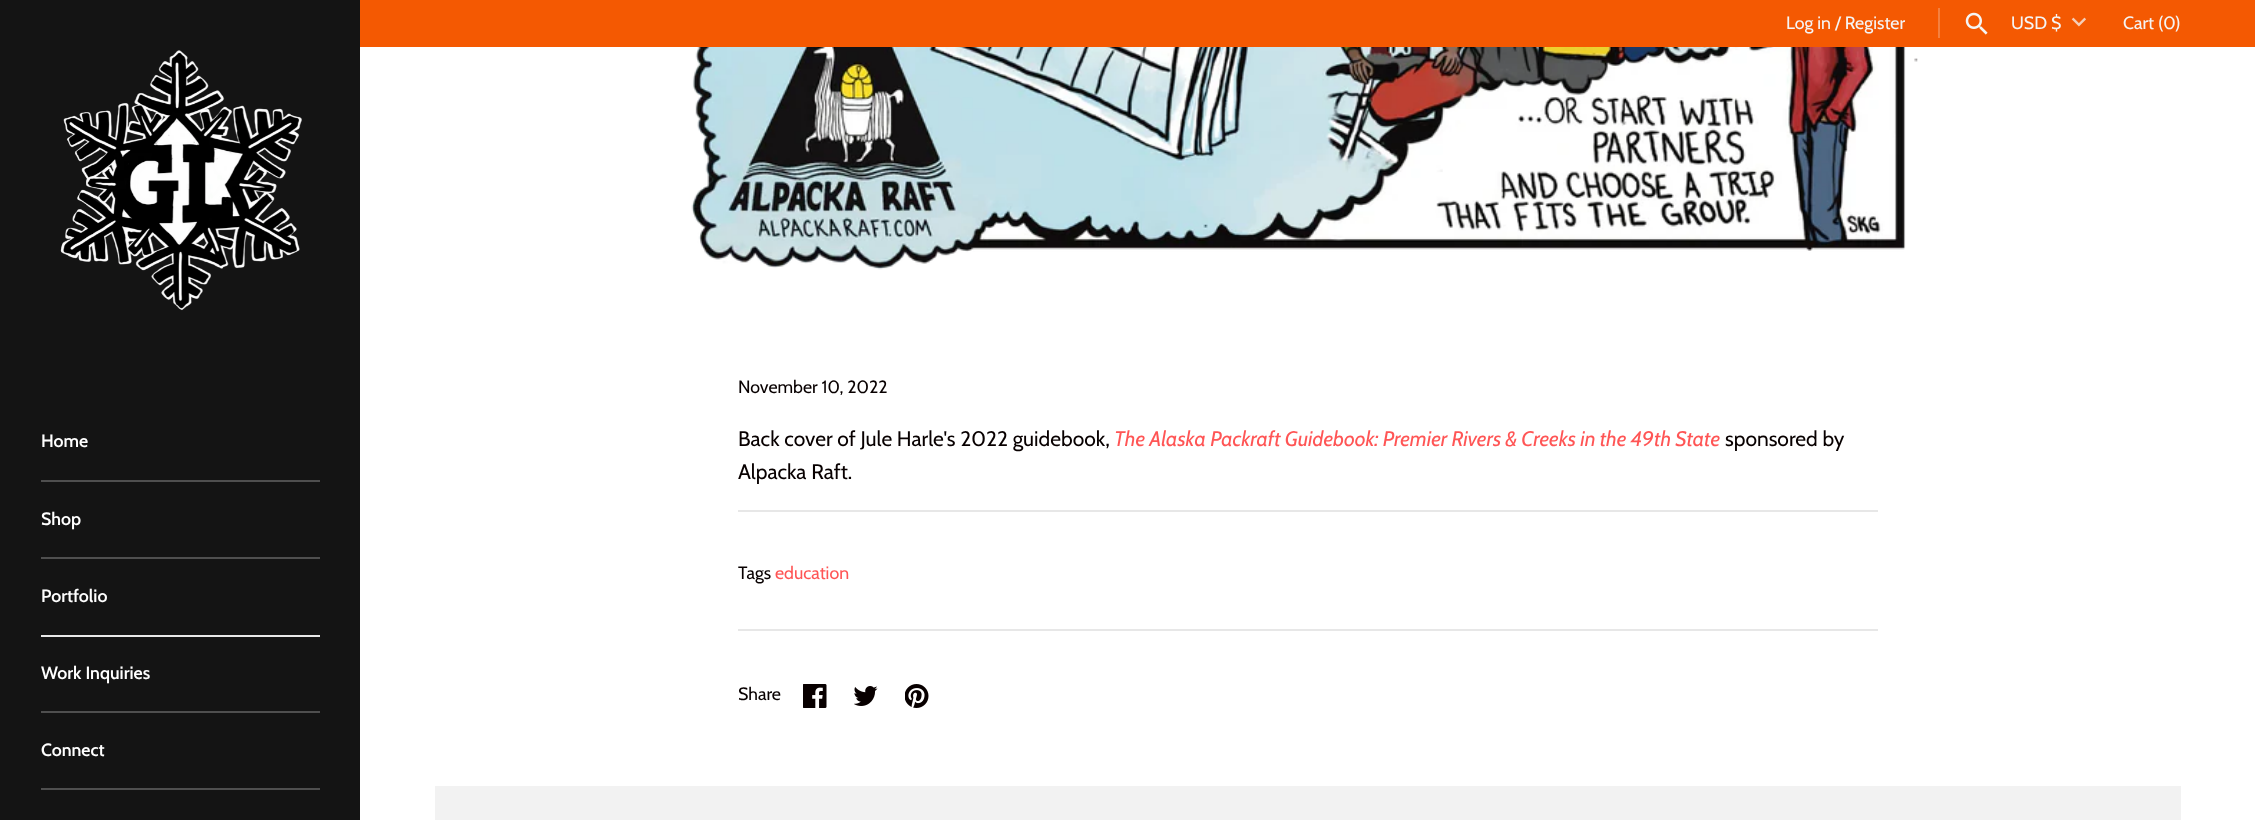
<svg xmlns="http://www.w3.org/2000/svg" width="2255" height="820">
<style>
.a{font:17.75px Cabin;fill:#f5f5f5}
.b{font:600 17.75px Cabin;fill:#fff}
.c{font:17.75px Cabin;fill:#080000}
.d{font:21px Cabin;fill:#080000}
.e{font:italic 21px Cabin;fill:#f55}
.f{font:17.75px Cabin;fill:#f55}
</style>
<rect width="100%" height="100%" fill="#fff"/>
<path fill="#f45902" d="M360 0h1895v47H360z"/>
<path fill="#f4803f" d="M1938 8h2v30H1938z"/>
<image href="1.png" x="1965" y="12" width="23" height="23"/>
<image href="2.png" x="2071" y="17" width="15" height="10"/>
<path fill="#141414" d="M0 0h360v820H0z"/>
<image href="3.png" x="60" y="50" width="242" height="261"/>
<path fill="#4f4f4f" d="M41 480h279v2H41z"/>
<path fill="#4f4f4f" d="M41 557h279v2H41z"/>
<path fill="#e8e8e8" d="M41 635h279v2H41z"/>
<path fill="#4f4f4f" d="M41 711h279v2H41z"/>
<path fill="#4f4f4f" d="M41 788h279v2H41z"/>
<image href="4.png" x="691" y="47" width="1227" height="223"/>
<path fill="#e7e7e7" d="M738 510h1140v2H738z"/>
<path fill="#e7e7e7" d="M738 629h1140v2H738z"/>
<image href="5.png" x="803" y="684" width="24" height="24"/>
<image href="6.png" x="854" y="686" width="24" height="20"/>
<image href="7.png" x="905" y="684" width="24" height="24"/>
<path fill="#f2f2f2" d="M435 786h1746v34H435z"/>
<text class="a" x="1786" y="29">Log in / Register</text>
<text class="a" x="2011" y="29">USD $</text>
<text class="a" x="2123" y="29">Cart (0)</text>
<text class="b" x="41" y="447">Home</text>
<text class="b" x="41" y="525">Shop</text>
<text class="b" x="41" y="602">Portfolio</text>
<text class="b" x="41" y="679">Work Inquiries</text>
<text class="b" x="41" y="756">Connect</text>
<text class="c" x="738" y="393">November 10, 2022</text>
<text class="d" x="738" y="446">Back cover of Jule Harle's 2022 guidebook,</text>
<text class="e" x="1114" y="446">The Alaska Packraft Guidebook: Premier Rivers &amp; Creeks in the 49th State</text>
<text class="d" x="1725" y="446">sponsored by</text>
<text class="d" x="738" y="479">Alpacka Raft.</text>
<text class="c" x="738" y="579">Tags</text>
<text class="f" x="775" y="579">education</text>
<text class="c" x="738" y="700">Share</text>
</svg>
